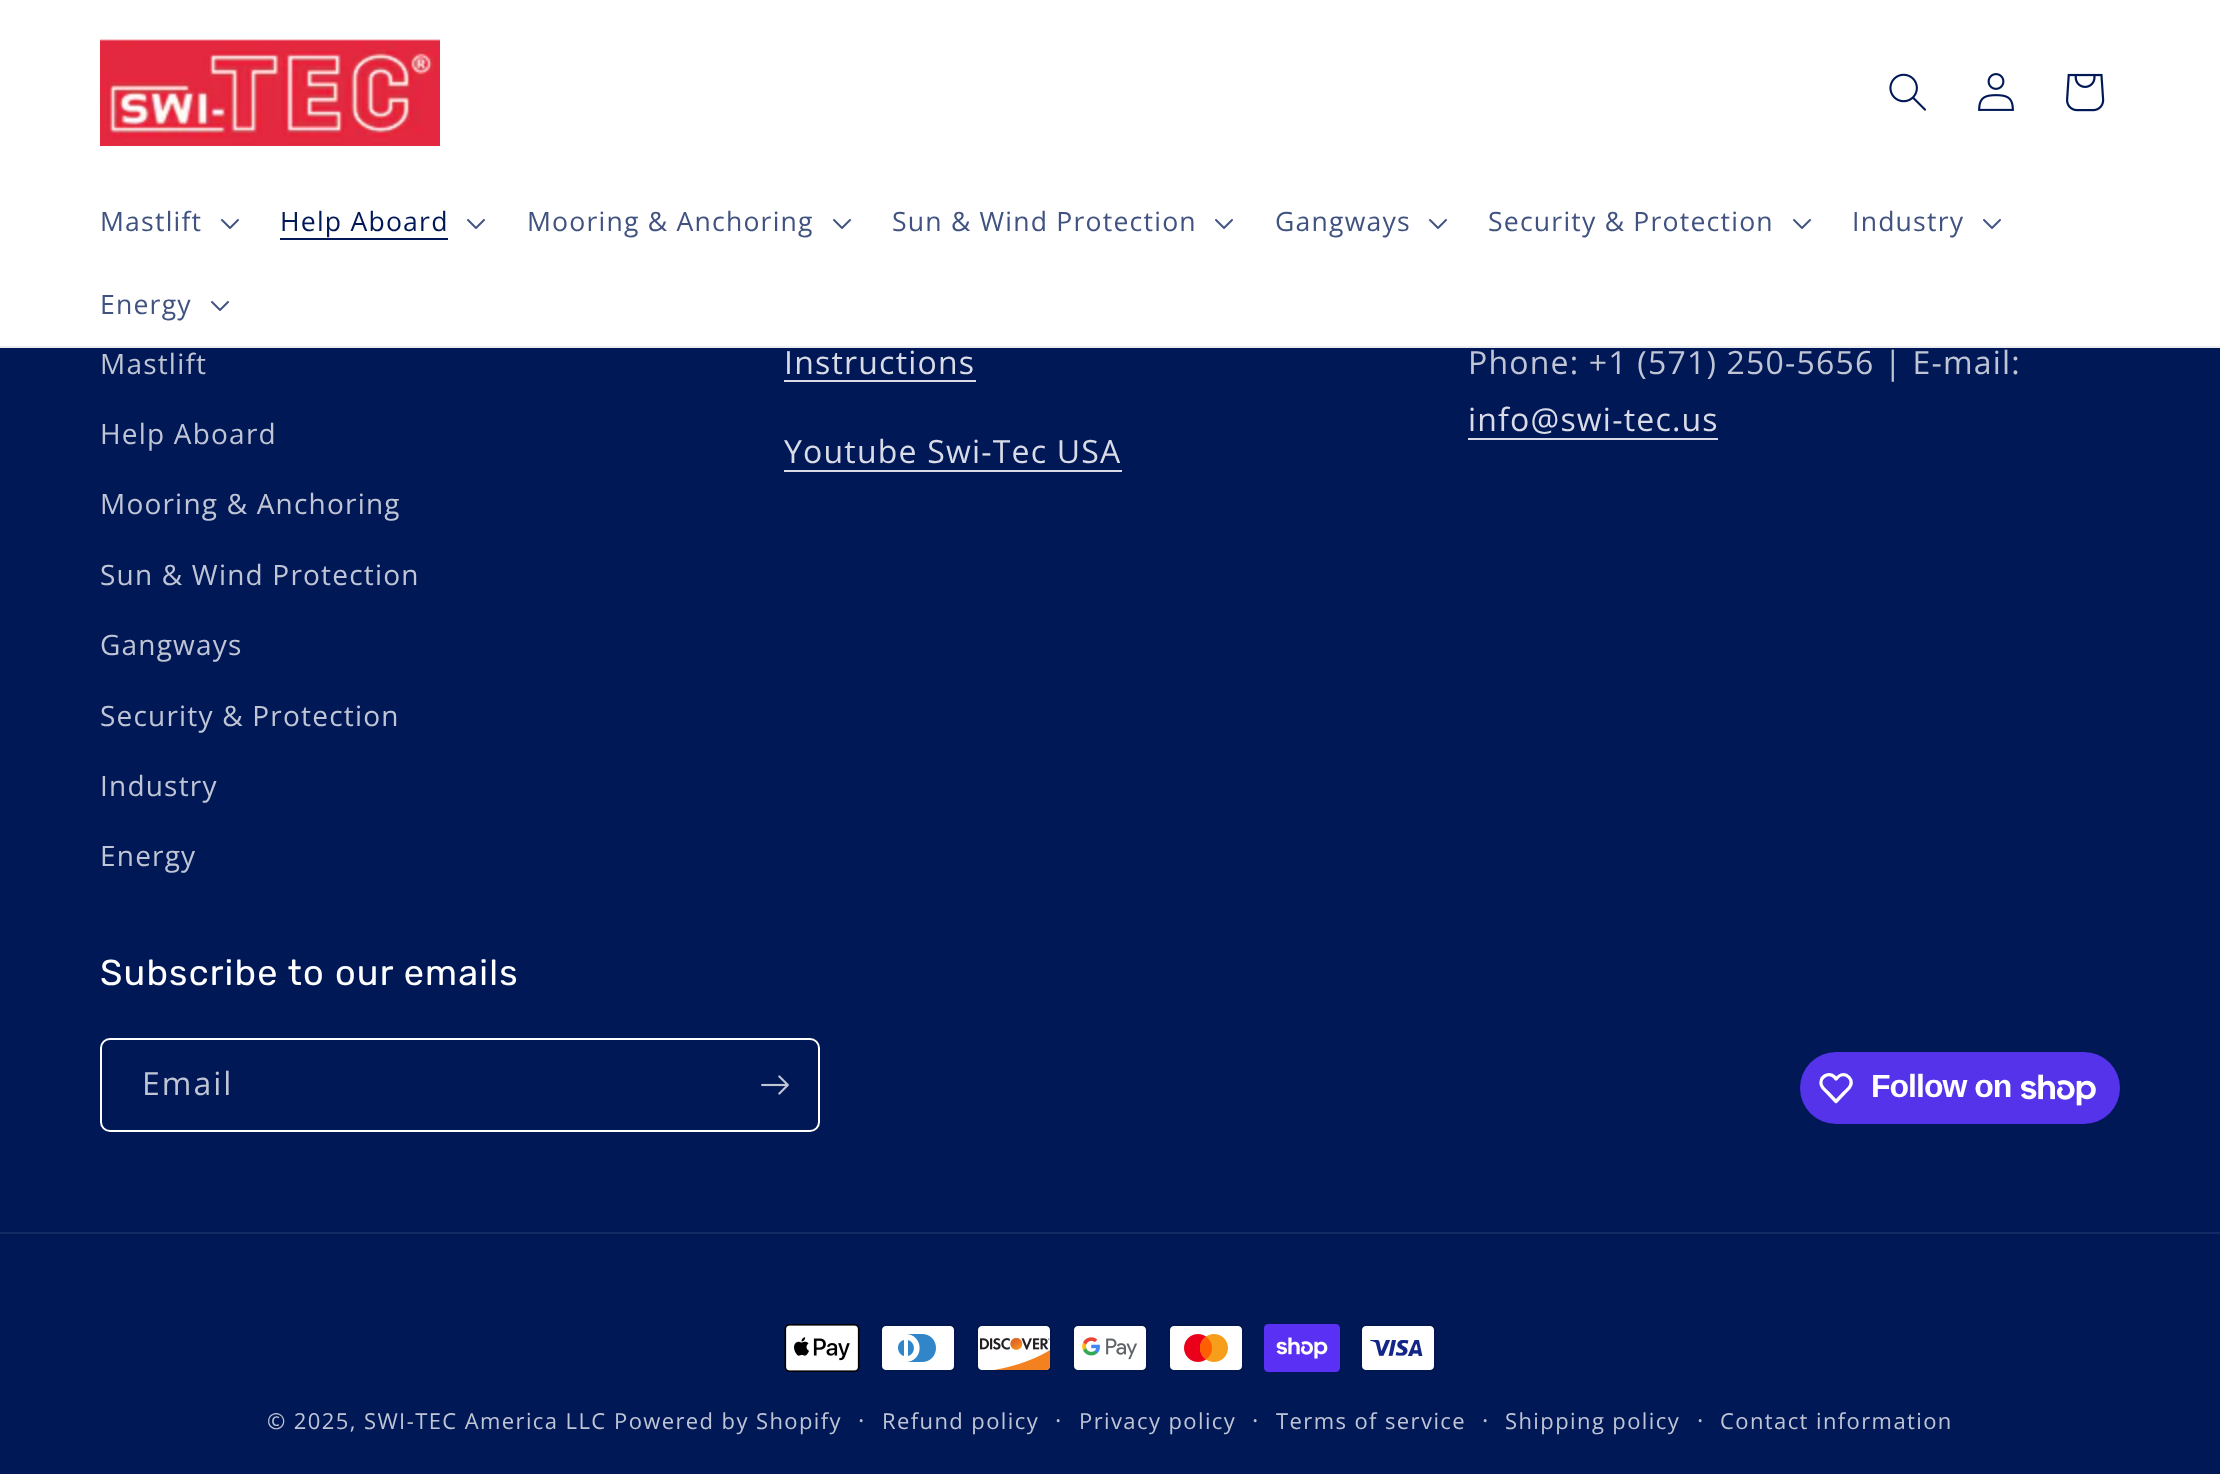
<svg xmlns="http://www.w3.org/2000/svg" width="2220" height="1474">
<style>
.a{font:26.6px Open Sans;letter-spacing:1.2px;fill:#405280}
.b{font:26.6px Open Sans;letter-spacing:1.2px;fill:#001856}
.c{font:28px Open Sans;letter-spacing:1.2px;fill:#bfc5d5}
.d{font:32px Open Sans;letter-spacing:1.2px;fill:#d9dce6}
.e{font:32px Open Sans;letter-spacing:1.2px;fill:#bfc5d5}
.f{font:36px Rubik;letter-spacing:1.2px;fill:#fff}
.g{font:32px Open Sans;letter-spacing:2px;fill:#bfc5d5}
.h{font:bold 32px Liberation Sans;letter-spacing:-1px;fill:#fff}
.i{font:22px Open Sans;letter-spacing:1.4px;fill:#bfc5d5}
.j{font:24px Open Sans;letter-spacing:1.4px;fill:#bfc5d5}
</style>
<rect width="100%" height="100%" fill="#001856"/>
<path fill="#fff" d="M0 0h2220v346H0z"/>
<path fill="#ebedf1" d="M0 346h2220v2H0z"/>
<image href="1.png" x="100" y="39" width="340" height="107"/>
<image href="2.png" x="1889" y="73" width="37" height="38"/>
<image href="3.png" x="1978" y="73" width="36" height="38"/>
<image href="4.png" x="2066" y="73" width="39" height="39"/>
<image href="5.png" x="221" y="219" width="18" height="10"/>
<path fill="#001856" d="M280 238h168v2H280z"/>
<image href="5.png" x="467" y="219" width="18" height="10"/>
<image href="5.png" x="833" y="219" width="18" height="10"/>
<image href="5.png" x="1215" y="219" width="18" height="10"/>
<image href="5.png" x="1429" y="219" width="18" height="10"/>
<image href="5.png" x="1793" y="219" width="18" height="10"/>
<image href="5.png" x="1983" y="219" width="18" height="10"/>
<image href="5.png" x="211" y="301" width="18" height="10"/>
<path fill="#d9dce6" d="M784 380h192v2H784z"/>
<path fill="#d9dce6" d="M784 470h338v2H784z"/>
<path fill="#d9dce6" d="M1468 438h250v2H1468z"/>
<rect fill="none" stroke="#fff" stroke-width="2" x="101" y="1039" width="718" height="92" rx="9"/>
<image href="6.png" x="761" y="1075" width="28" height="20"/>
<rect fill="#5433eb" x="1800" y="1052" width="320" height="72" rx="36"/>
<path fill="none" stroke="#fff" stroke-width="3.3" stroke-linejoin="round" d="M1834.5 1077l1.5 2c1.5-1.5 3-3.5 5-4c6-2 12 4.5 9.5 10.5c-1 3-4 5-6 7l-8.5 9l-8.5-9c-2-2-5-4-6-7c-3-8 7-14.5 13-8.5z"/>
<image href="7.png" x="2021" y="1074" width="75" height="32"/>
<path fill="#142a64" d="M0 1232h2220v2H0z"/>
<image href="8.png" x="784" y="1324" width="76" height="48"/>
<image href="9.png" x="880" y="1324" width="76" height="48"/>
<image href="10.png" x="976" y="1324" width="76" height="48"/>
<image href="11.png" x="1072" y="1324" width="76" height="48"/>
<image href="12.png" x="1168" y="1324" width="76" height="48"/>
<image href="13.png" x="1264" y="1324" width="76" height="48"/>
<image href="14.png" x="1360" y="1324" width="76" height="48"/>
<text class="a" x="100" y="231">Mastlift</text>
<text class="b" x="280" y="231">Help Aboard</text>
<text class="a" x="527" y="231">Mooring &amp; Anchoring</text>
<text class="a" x="892" y="231">Sun &amp; Wind Protection</text>
<text class="a" x="1275" y="231">Gangways</text>
<text class="a" x="1488" y="231">Security &amp; Protection</text>
<text class="a" x="1852" y="231">Industry</text>
<text class="a" x="100" y="314">Energy</text>
<text class="c" x="100" y="374">Mastlift</text>
<text class="c" x="100" y="444">Help Aboard</text>
<text class="c" x="100" y="514">Mooring &amp; Anchoring</text>
<text class="c" x="100" y="585">Sun &amp; Wind Protection</text>
<text class="c" x="100" y="655">Gangways</text>
<text class="c" x="100" y="726">Security &amp; Protection</text>
<text class="c" x="100" y="796">Industry</text>
<text class="c" x="100" y="866">Energy</text>
<text class="d" x="784" y="374">Instructions</text>
<text class="d" x="784" y="463">Youtube Swi-Tec USA</text>
<text class="e" x="1468" y="374">Phone: +1 (571) 250-5656 | E-mail:</text>
<text class="d" x="1468" y="431">info@swi-tec.us</text>
<text class="f" x="100" y="985">Subscribe to our emails</text>
<text class="g" x="142" y="1095">Email</text>
<text class="h" x="1871" y="1097">Follow on</text>
<text class="i" x="267" y="1429">© 2025, SWI-TEC America LLC</text>
<text class="i" x="614" y="1429">Powered by Shopify</text>
<text class="j" x="858" y="1429">·</text>
<text class="i" x="882" y="1429">Refund policy</text>
<text class="j" x="1055" y="1429">·</text>
<text class="i" x="1079" y="1429">Privacy policy</text>
<text class="j" x="1252" y="1429">·</text>
<text class="i" x="1276" y="1429">Terms of service</text>
<text class="j" x="1482" y="1429">·</text>
<text class="i" x="1505" y="1429">Shipping policy</text>
<text class="j" x="1697" y="1429">·</text>
<text class="i" x="1720" y="1429">Contact information</text>
</svg>
